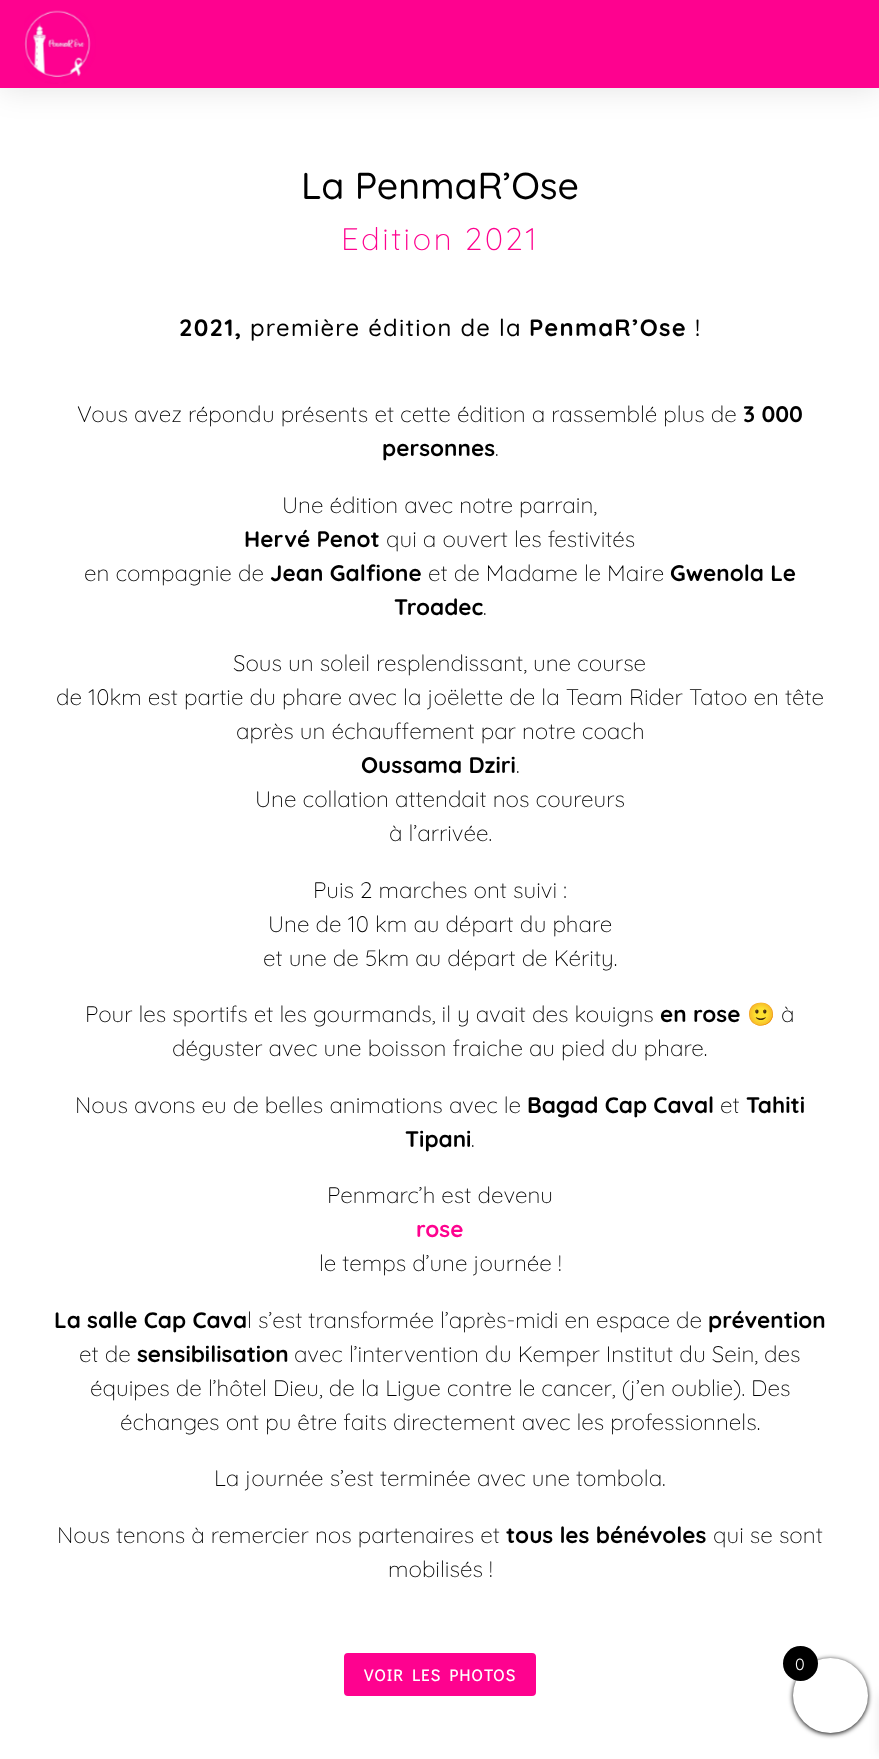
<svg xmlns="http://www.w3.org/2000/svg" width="879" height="1759">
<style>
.a{font:500 37.5px Quicksand;fill:#000}
.b{font:300 31.25px Quicksand;letter-spacing:2.5px;fill:#fe028f}
.c{font:bold 23.75px Quicksand;letter-spacing:1.25px;fill:#000}
.d{font:500 23.75px Quicksand;letter-spacing:1.25px;fill:#000}
.e{font:300 22.5px Quicksand;fill:#000}
.f{font:bold 22.5px Quicksand;fill:#000}
.g{font:bold 22.5px Noto Color Emoji;fill:#000}
.h{font:bold 22.5px Quicksand;fill:#fe028f}
.i{font:bold 16.25px Didact Gothic;letter-spacing:1.25px;fill:#fff}
.j{font:16.25px Quicksand;fill:#fff}
</style>
<rect width="100%" height="100%" fill="#fff"/>
<path fill="#0000001a" filter="blur(15.5px)" d="M0 3h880v87H0z"/>
<path fill="#fe028f" d="M0 0h879v88H0z"/>
<image href="1.png" x="24" y="10" width="72" height="74"/>
<rect fill="#fe028f" stroke="#fe028f" stroke-width="4" x="346" y="1655" width="188" height="39" rx="2"/>
<rect fill="#000" filter="blur(2.5px)" x="793" y="1659" width="75" height="75" rx="37.5"/>
<path fill="#0000001a" filter="blur(6px)" d="M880 1695h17v59H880z"/>
<circle fill="#fff" cx="830.5" cy="1695.5" r="37.5"/>
<circle fill="#000" cx="800.5" cy="1663.5" r="17.5"/>
<text class="a" x="301" y="199">La PenmaR’Ose</text>
<text class="b" x="341" y="250">Edition 2021</text>
<text class="c" x="179" y="336">2021,</text>
<text class="d" x="250" y="336">première édition de la</text>
<text class="c" x="529" y="336">PenmaR’Ose</text>
<text class="d" x="695" y="336">!</text>
<text class="e" x="77" y="422">Vous avez répondu présents et cette édition a rassemblé plus de</text>
<text class="f" x="743" y="422">3 000</text>
<text class="f" x="382" y="456">personnes</text>
<text class="e" x="495" y="456">.</text>
<text class="e" x="282" y="513">Une édition avec notre parrain,</text>
<text class="f" x="244" y="547">Hervé Penot</text>
<text class="e" x="386" y="547">qui a ouvert les festivités</text>
<text class="e" x="84" y="581">en compagnie de</text>
<text class="f" x="270" y="581">Jean Galfione</text>
<text class="e" x="428" y="581">et de Madame le Maire</text>
<text class="f" x="670" y="581">Gwenola Le</text>
<text class="f" x="394" y="615">Troadec</text>
<text class="e" x="483" y="615">.</text>
<text class="e" x="233" y="671">Sous un soleil resplendissant, une course</text>
<text class="e" x="56" y="705">de 10km est partie du phare avec la joëlette de la Team Rider Tatoo en tête</text>
<text class="e" x="236" y="739">après un échauffement par notre coach</text>
<text class="f" x="361" y="773">Oussama Dziri</text>
<text class="e" x="516" y="773">.</text>
<text class="e" x="255" y="807">Une collation attendait nos coureurs</text>
<text class="e" x="389" y="841">à l’arrivée.</text>
<text class="e" x="313" y="898">Puis 2 marches ont suivi :</text>
<text class="e" x="268" y="932">Une de 10 km au départ du phare</text>
<text class="e" x="263" y="966">et une de 5km au départ de Kérity.</text>
<text class="e" x="85" y="1022">Pour les sportifs et les gourmands, il y avait des kouigns</text>
<text class="f" x="660" y="1022">en rose</text>
<text class="g" x="747" y="1022">🙂</text>
<text class="e" x="781" y="1022">à</text>
<text class="e" x="172" y="1056">déguster avec une boisson fraiche au pied du phare.</text>
<text class="e" x="75" y="1113">Nous avons eu de belles animations avec le</text>
<text class="f" x="527" y="1113">Bagad Cap Caval</text>
<text class="e" x="720" y="1113">et</text>
<text class="f" x="746" y="1113">Tahiti</text>
<text class="f" x="405" y="1147">Tipani</text>
<text class="e" x="471" y="1147">.</text>
<text class="e" x="327" y="1203">Penmarc’h est devenu</text>
<text class="h" x="416" y="1237">rose</text>
<text class="e" x="319" y="1271">le temps d’une journée !</text>
<text class="f" x="54" y="1328">La salle Cap Cava</text>
<text class="e" x="247" y="1328">l s’est transformée l’après-midi en espace de</text>
<text class="f" x="708" y="1328">prévention</text>
<text class="e" x="79" y="1362">et de</text>
<text class="f" x="137" y="1362">sensibilisation</text>
<text class="e" x="294" y="1362">avec l’intervention du Kemper Institut du Sein, des</text>
<text class="e" x="90" y="1396">équipes de l’hôtel Dieu, de la Ligue contre le cancer, (j’en oublie). Des</text>
<text class="e" x="120" y="1430">échanges ont pu être faits directement avec les professionnels.</text>
<text class="e" x="214" y="1486">La journée s’est terminée avec une tombola.</text>
<text class="e" x="57" y="1543">Nous tenons à remercier nos partenaires et</text>
<text class="f" x="506" y="1543">tous les bénévoles</text>
<text class="e" x="713" y="1543">qui se sont</text>
<text class="e" x="388" y="1577">mobilisés !</text>
<text class="i" x="364" y="1681">VOIR LES PHOTOS</text>
<text class="j" x="795" y="1670">0</text>
</svg>
